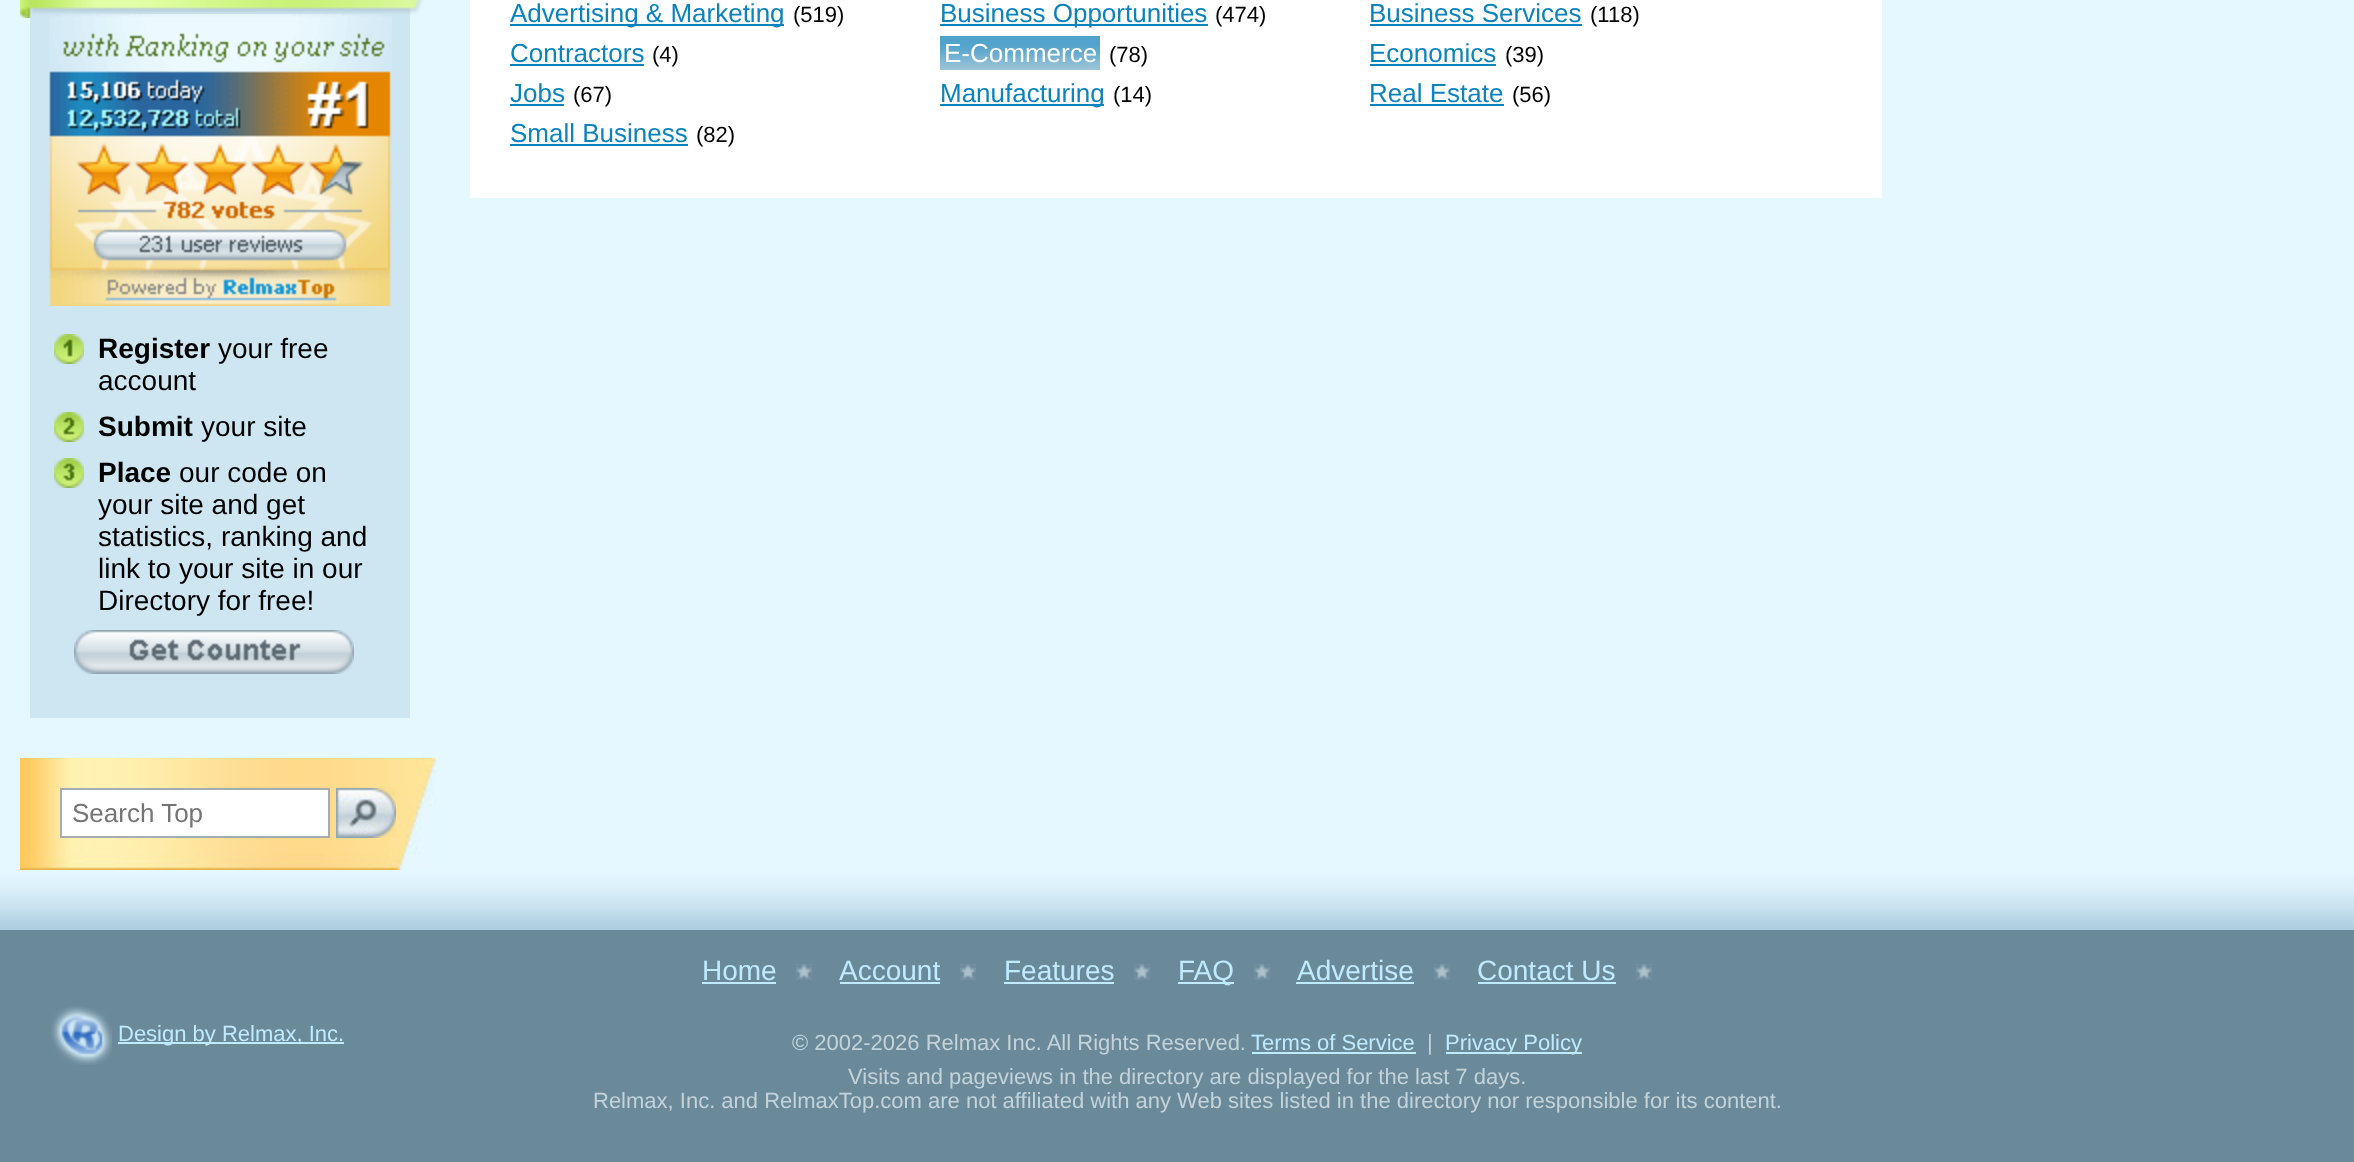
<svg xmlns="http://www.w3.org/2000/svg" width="2354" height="1162">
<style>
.a{font:26px Liberation Sans;fill:#0b83bf}
.b{font:22px Liberation Sans;fill:#000}
.c{font:26px Liberation Sans;fill:#fff}
.d{font:bold 28px Liberation Sans;fill:#000}
.e{font:28px Liberation Sans;fill:#000}
.f{font:26px Liberation Sans;fill:#757575}
.g{font:22px Liberation Sans;fill:#bfeaff}
.h{font:28px Liberation Sans;fill:#bfeaff}
.i{font:22px Liberation Sans;fill:#c3d3d9}
</style>
<rect width="100%" height="100%" fill="#e5f7ff"/>
<path fill="#fff" d="M470 0h1412v198H470z"/>
<path fill="#0b83bf" d="M510 24h274v2H510z"/>
<path fill="#0b83bf" d="M510 64h134v2H510z"/>
<path fill="#0b83bf" d="M510 104h54v2H510z"/>
<path fill="#0b83bf" d="M510 144h178v2H510z"/>
<path fill="#0b83bf" d="M940 24h268v2H940z"/>
<image href="1.png" x="940" y="36" width="160" height="34"/>
<path fill="#0b83bf" d="M940 104h164v2H940z"/>
<path fill="#0b83bf" d="M1370 24h212v2H1370z"/>
<path fill="#0b83bf" d="M1370 64h126v2H1370z"/>
<path fill="#0b83bf" d="M1370 104h134v2H1370z"/>
<image href="2.png" x="20" y="0" width="403" height="18"/>
<path fill="#cee6f2" d="M30 18h380v700H30z"/>
<image href="3.png" x="49" y="14" width="343" height="292"/>
<image href="4.png" x="54" y="334" width="30" height="30"/>
<image href="5.png" x="54" y="412" width="30" height="30"/>
<image href="6.png" x="54" y="458" width="30" height="30"/>
<image href="7.png" x="74" y="630" width="280" height="44"/>
<image href="8.png" x="20" y="758" width="416" height="112"/>
<path fill="#fff" stroke="#a5acb2" stroke-width="2" d="M61 789h268v48H61z"/>
<image href="9.png" x="336" y="788" width="60" height="50"/>
<path fill="#6b8a99" d="M0 930h2354v232H0z"/>
<image href="10.png" x="0" y="874" width="2354" height="56"/>
<image href="11.png" x="51" y="1006" width="61" height="59"/>
<path fill="#bfeaff" d="M118 1042h226v2H118z"/>
<path fill="#bfeaff" d="M702 982h74v2H702z"/>
<image href="12.png" x="796" y="964" width="16" height="16"/>
<path fill="#bfeaff" d="M840 982h100v2H840z"/>
<image href="12.png" x="960" y="964" width="16" height="16"/>
<path fill="#bfeaff" d="M1004 982h110v2H1004z"/>
<image href="12.png" x="1134" y="964" width="16" height="16"/>
<path fill="#bfeaff" d="M1178 982h56v2H1178z"/>
<image href="12.png" x="1254" y="964" width="16" height="16"/>
<path fill="#bfeaff" d="M1296 982h118v2H1296z"/>
<image href="12.png" x="1434" y="964" width="16" height="16"/>
<path fill="#bfeaff" d="M1478 982h138v2H1478z"/>
<image href="12.png" x="1636" y="964" width="16" height="16"/>
<path fill="#bfeaff" d="M1252 1052h164v2H1252z"/>
<path fill="#bfeaff" d="M1446 1052h136v2H1446z"/>
<text class="a" x="510" y="22">Advertising &amp; Marketing</text>
<text class="b" x="793" y="22">(519)</text>
<text class="a" x="510" y="62">Contractors</text>
<text class="b" x="652" y="62">(4)</text>
<text class="a" x="510" y="102">Jobs</text>
<text class="b" x="573" y="102">(67)</text>
<text class="a" x="510" y="142">Small Business</text>
<text class="b" x="696" y="142">(82)</text>
<text class="a" x="940" y="22">Business Opportunities</text>
<text class="b" x="1215" y="22">(474)</text>
<text class="c" x="944" y="62">E-Commerce</text>
<text class="b" x="1109" y="62">(78)</text>
<text class="a" x="940" y="102">Manufacturing</text>
<text class="b" x="1113" y="102">(14)</text>
<text class="a" x="1369" y="22">Business Services</text>
<text class="b" x="1590" y="22">(118)</text>
<text class="a" x="1369" y="62">Economics</text>
<text class="b" x="1505" y="62">(39)</text>
<text class="a" x="1369" y="102">Real Estate</text>
<text class="b" x="1512" y="102">(56)</text>
<text class="d" x="98" y="358">Register</text>
<text class="e" x="218" y="358">your free</text>
<text class="e" x="98" y="390">account</text>
<text class="d" x="98" y="436">Submit</text>
<text class="e" x="201" y="436">your site</text>
<text class="d" x="98" y="482">Place</text>
<text class="e" x="179" y="482">our code on</text>
<text class="e" x="98" y="514">your site and get</text>
<text class="e" x="98" y="546">statistics, ranking and</text>
<text class="e" x="98" y="578">link to your site in our</text>
<text class="e" x="98" y="610">Directory for free!</text>
<text class="f" x="72" y="822">Search Top</text>
<text class="g" x="118" y="1041">Design by Relmax, Inc.</text>
<text class="h" x="702" y="980">Home</text>
<text class="h" x="839" y="980">Account</text>
<text class="h" x="1004" y="980">Features</text>
<text class="h" x="1178" y="980">FAQ</text>
<text class="h" x="1297" y="980">Advertise</text>
<text class="h" x="1477" y="980">Contact Us</text>
<text class="i" x="792" y="1050">© 2002-2026 Relmax Inc. All Rights Reserved.</text>
<text class="g" x="1251" y="1050">Terms of Service</text>
<text class="i" x="1427" y="1050">|</text>
<text class="g" x="1445" y="1050">Privacу Policy</text>
<text class="i" x="848" y="1084">Visits and pageviews in the directory are displayed for the last 7 days.</text>
<text class="i" x="593" y="1108">Relmax, Inc. and RelmaxTop.com are not affiliated with any Web sites listed in the directory nor responsible for its content.</text>
</svg>
